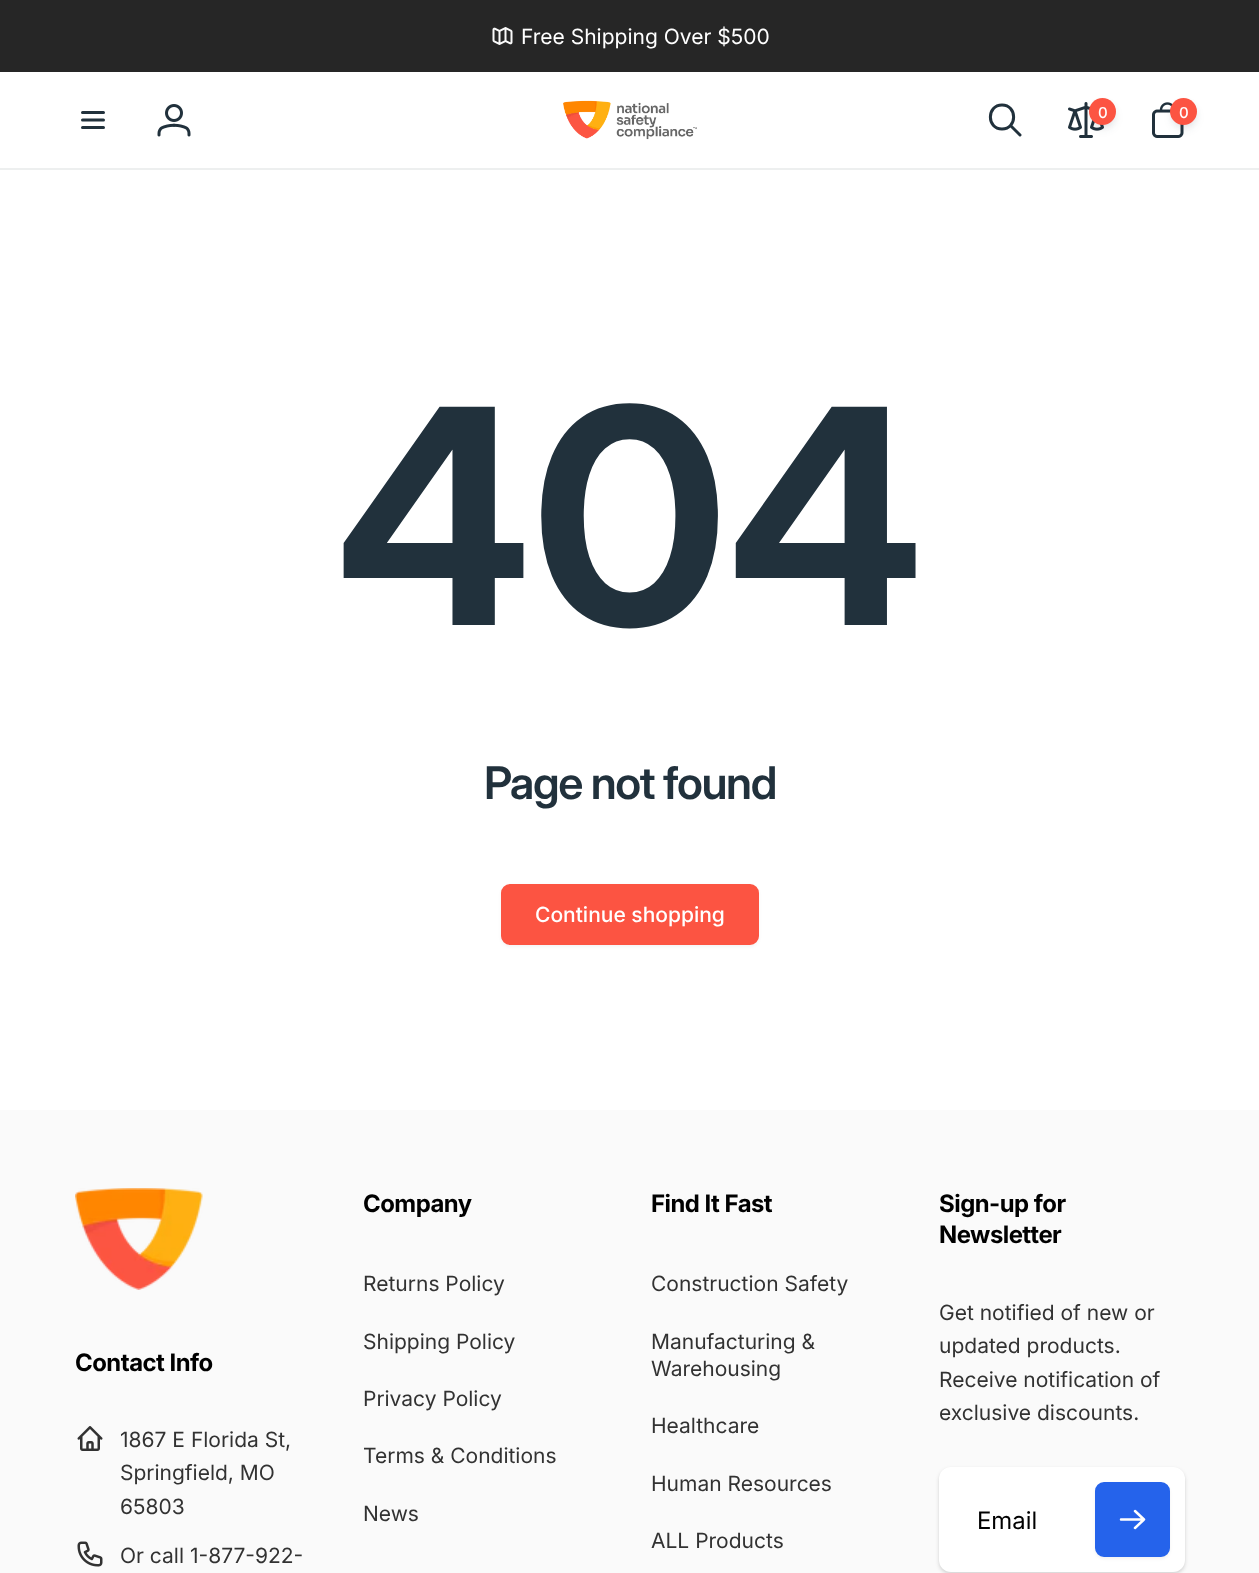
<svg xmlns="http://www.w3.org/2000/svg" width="1259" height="1573">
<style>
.a{font:21px Inter;fill:#fff}
.b{font:500 15px Inter;fill:#fff}
.c{font:bold 300px Inter;fill:#21313c}
.d{font:600 45px Inter;letter-spacing:-1.4px;fill:#21313c}
.e{font:500 21px Inter;fill:#fff}
.f{font:bold 24px 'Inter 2';letter-spacing:-0.5px;fill:#000}
.g{font:21px Inter;fill:#323232}
.h{font:24px 'Inter 2';fill:#000}
</style>
<rect width="100%" height="100%" fill="#fff"/>
<path fill="#262626" d="M0 0h1259v72H0z"/>
<image href="1.png" x="492" y="27" width="21" height="18"/>
<path fill="#edefef" d="M0 168h1259v2H0z"/>
<path fill="none" stroke="#21313c" stroke-width="3" stroke-linecap="round" d="M82.5 112.5h21m-21 7.5h21m-21 7.5h21"/>
<image href="2.png" x="157" y="104" width="34" height="33"/>
<image href="3.png" x="563" y="100" width="134" height="40"/>
<path fill="none" stroke="#21313c" stroke-width="3" stroke-linecap="round" stroke-linejoin="round" d="M1020 135l-9.5-9.5m-8.5 3.5c15.5 0 15.5-24 0-24c-15.5 0-15.5 24 0 24z"/>
<image href="4.png" x="1068" y="102" width="36" height="36"/>
<rect fill="#21313c0f" filter="blur(3px)" x="1091" y="102" width="24" height="24" rx="12"/>
<rect fill="#21313c1a" filter="blur(4.5px)" x="1091" y="105" width="24" height="24" rx="12"/>
<circle fill="#fc5442" cx="1102.5" cy="111.5" r="13.5"/>
<image href="5.png" x="1152" y="102" width="32" height="36"/>
<rect fill="#21313c0f" filter="blur(3px)" x="1172" y="102" width="24" height="24" rx="12"/>
<rect fill="#21313c1a" filter="blur(4.5px)" x="1172" y="105" width="24" height="24" rx="12"/>
<circle fill="#fc5442" cx="1183.5" cy="111.5" r="13.5"/>
<rect fill="#21313c0d" filter="blur(1.5px)" x="501" y="885" width="258" height="62" rx="9"/>
<rect fill="#fc5442" stroke="#fc5442" stroke-width="2" x="502" y="885" width="256" height="59" rx="8"/>
<path fill="#fafafa" d="M0 1110h1259v463H0z"/>
<image href="6.png" x="75" y="1188" width="128" height="102"/>
<image href="7.png" x="77" y="1426" width="26" height="25"/>
<image href="8.png" x="77" y="1541" width="26" height="26"/>
<rect fill="#0000001a" filter="blur(2px)" x="939" y="1469" width="246" height="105" rx="12"/>
<rect fill="#0000000f" filter="blur(1.5px)" x="939" y="1469" width="246" height="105" rx="12"/>
<rect fill="#fff" x="939" y="1467" width="246" height="105" rx="12"/>
<rect fill="#0000000d" filter="blur(1.5px)" x="1095" y="1484" width="75" height="75" rx="9"/>
<rect fill="#2563eb" stroke="#2563eb" stroke-width="2" x="1096" y="1483" width="73" height="73" rx="8"/>
<path fill="none" stroke="#fff" stroke-width="2.5" stroke-linecap="round" stroke-linejoin="round" d="M1135 1511l9 8.5m0 0l-9 8.5m9-8.5h-23"/>
<text class="a" x="521" y="44">Free Shipping Over $500</text>
<text class="b" x="1098" y="118">0</text>
<text class="b" x="1179" y="118">0</text>
<text class="c" x="335" y="625">404</text>
<text class="d" x="484" y="799">Page not found</text>
<text class="e" x="535" y="922">Continue shopping</text>
<text class="f" x="75" y="1371">Contact Info</text>
<text class="g" x="120" y="1447">1867 E Florida St,</text>
<text class="g" x="120" y="1480">Springfield, MO</text>
<text class="g" x="120" y="1514">65803</text>
<text class="g" x="120" y="1563">Or call 1-877-922-</text>
<text class="f" x="363" y="1212">Company</text>
<text class="g" x="363" y="1291">Returns Policy</text>
<text class="g" x="363" y="1349">Shipping Policy</text>
<text class="g" x="363" y="1406">Privacy Policy</text>
<text class="g" x="363" y="1463">Terms &amp; Conditions</text>
<text class="g" x="363" y="1521">News</text>
<text class="f" x="651" y="1212">Find It Fast</text>
<text class="g" x="651" y="1291">Construction Safety</text>
<text class="g" x="651" y="1349">Manufacturing &amp;</text>
<text class="g" x="651" y="1376">Warehousing</text>
<text class="g" x="651" y="1433">Healthcare</text>
<text class="g" x="651" y="1491">Human Resources</text>
<text class="g" x="651" y="1548">ALL Products</text>
<text class="f" x="939" y="1212">Sign-up for</text>
<text class="f" x="939" y="1243">Newsletter</text>
<text class="g" x="939" y="1320">Get notified of new or</text>
<text class="g" x="939" y="1353">updated products.</text>
<text class="g" x="939" y="1387">Receive notification of</text>
<text class="g" x="939" y="1420">exclusive discounts.</text>
<text class="h" x="977" y="1529">Email</text>
</svg>
